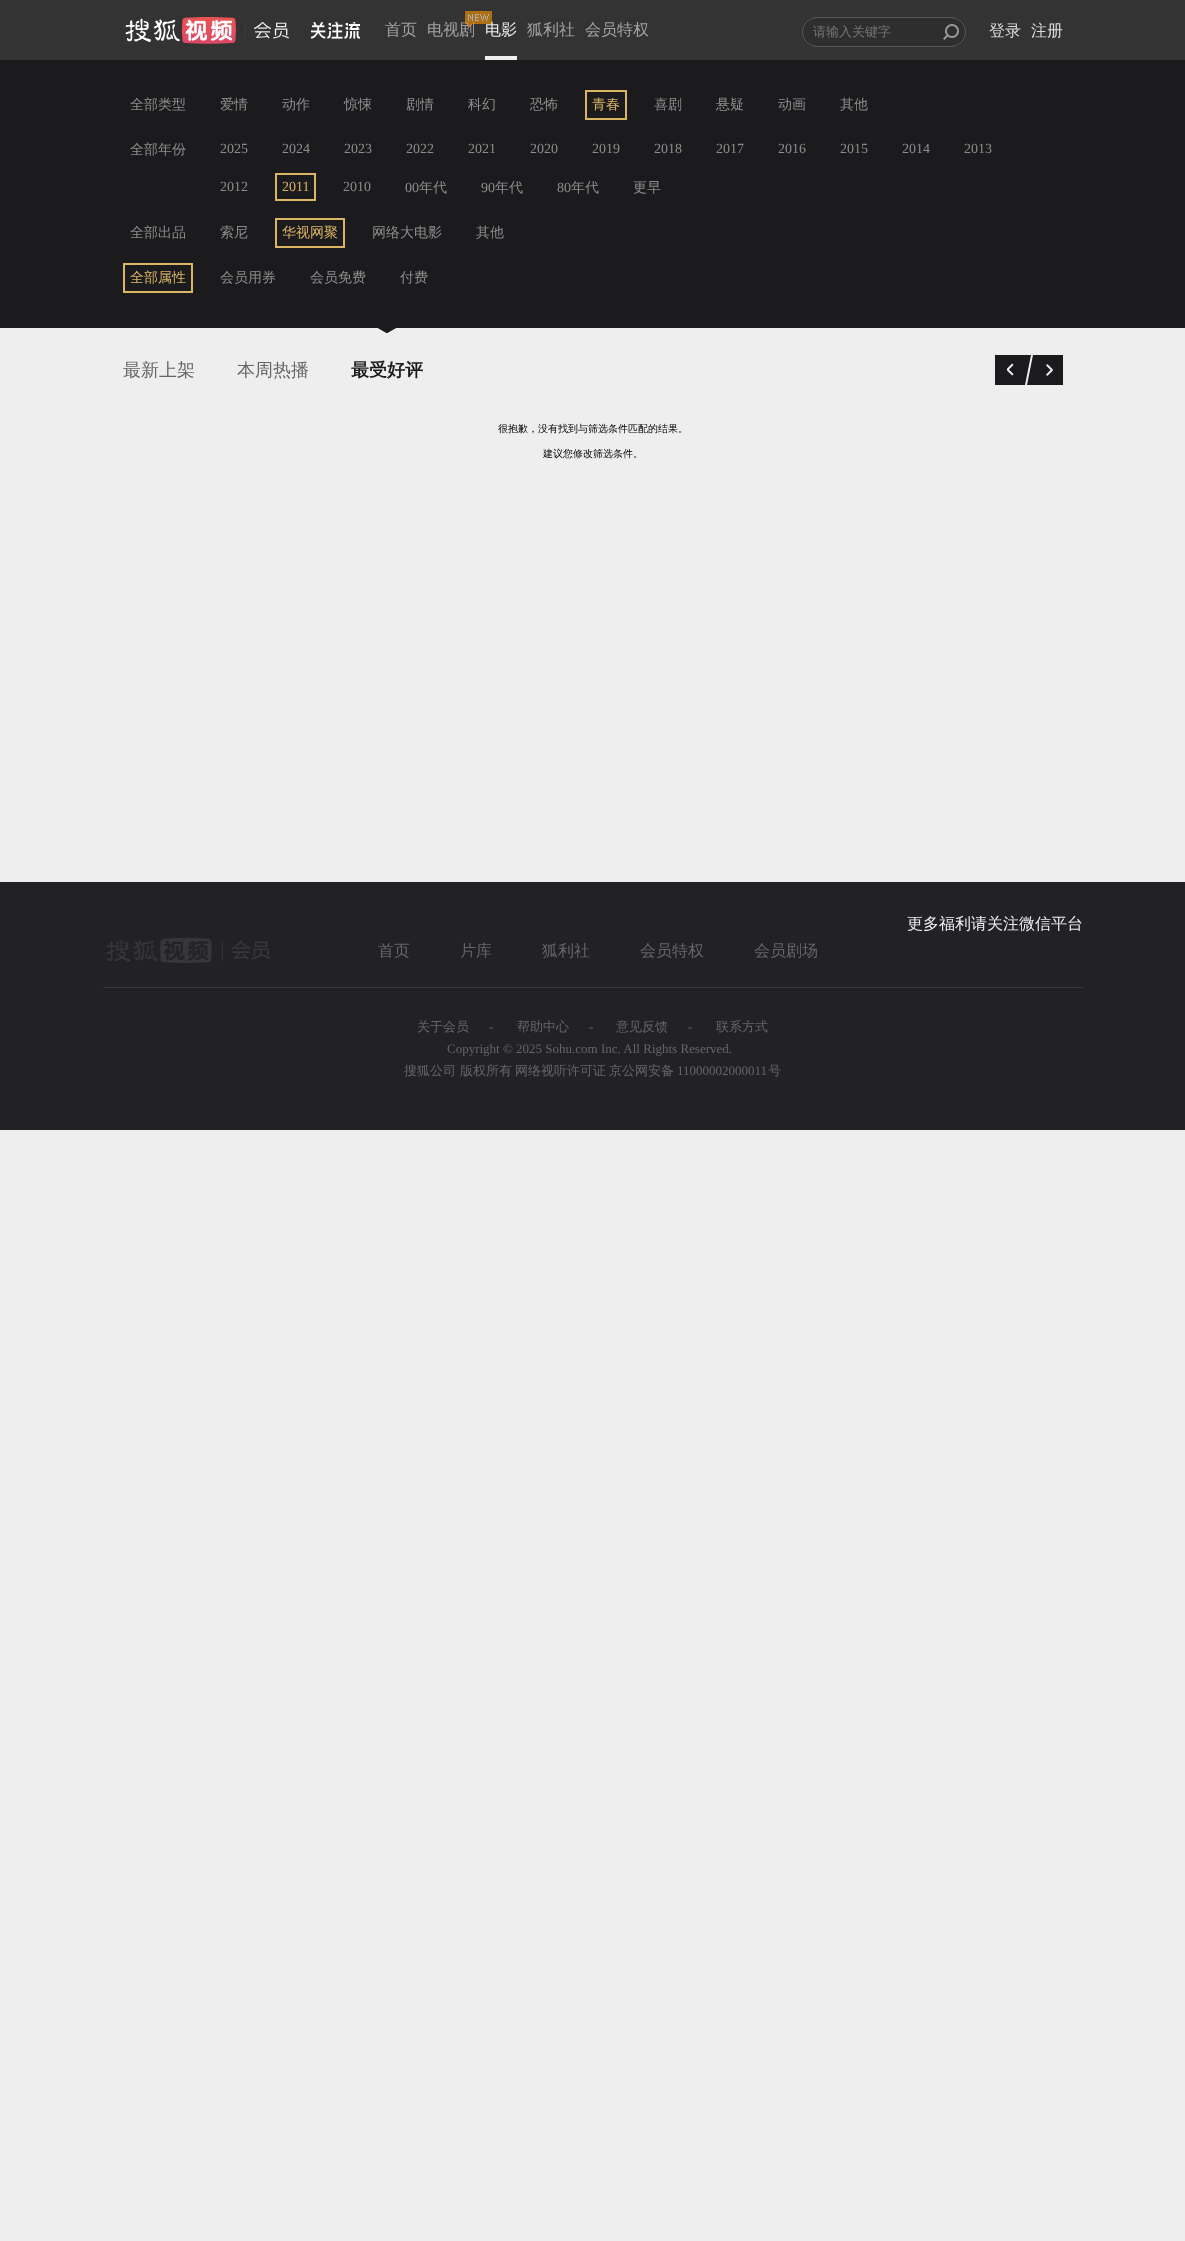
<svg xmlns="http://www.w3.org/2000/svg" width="1185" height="2241">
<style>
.a{font:500 16px WenQuanYi Zen Hei;fill:#a3a3a3}
.b{font:500 16px WenQuanYi Zen Hei;fill:#eee}
.c{font:500 13px WenQuanYi Zen Hei;fill:#757575}
.d{font:500 16px WenQuanYi Zen Hei;fill:#dbdbdb}
.e{font:500 14px WenQuanYi Zen Hei;fill:#8d8d8d}
.f{font:500 14px WenQuanYi Zen Hei;fill:#dab564}
.g{font:14px Liberation Serif;fill:#8d8d8d}
.h{font:14px Liberation Serif;fill:#dab564}
.i{font:500 18px WenQuanYi Zen Hei;fill:#666}
.j{font:bold 18px WenQuanYi Zen Hei;fill:#1b1b1e}
.k{font:500 10px WenQuanYi Zen Hei;fill:#000}
.l{font:500 16px WenQuanYi Zen Hei;fill:#666}
.m{font:500 13px WenQuanYi Zen Hei;fill:#666}
.n{font:13px Liberation Serif;fill:#666}
</style>
<rect width="100%" height="100%" fill="#eee"/>
<path fill="#333" d="M0 0h1185v60H0z"/>
<image href="1.png" x="125" y="17" width="164" height="27"/>
<image href="2.png" x="311" y="22" width="49" height="17"/>
<path fill="#eee" d="M485 56h32v4H485z"/>
<rect fill="#2e2e2e" stroke="#585858" x="802.5" y="17.5" width="163" height="29" rx="14.5"/>
<image href="4.png" x="943" y="24" width="16" height="16"/>
<path fill="#1b1b1e" d="M0 60h1185v268H0z"/>
<path fill="none" stroke="#dab564" stroke-width="2" d="M586 91h40v28H586z"/>
<path fill="none" stroke="#dab564" stroke-width="2" d="M276 174h39v26H276z"/>
<path fill="none" stroke="#dab564" stroke-width="2" d="M276 219h68v28H276z"/>
<path fill="none" stroke="#dab564" stroke-width="2" d="M124 264h68v28H124z"/>
<image href="5.png" x="378" y="328" width="18" height="5"/>
<path fill="#1b1b1e" d="M995 355h36l-6 30h-30z"/>
<image href="6.png" x="1007" y="363" width="7" height="13"/>
<path fill="#1b1b1e" d="M1063 385h-36l6-30h30z"/>
<image href="7.png" x="1046" y="364" width="7" height="12"/>
<path fill="#222226" d="M0 882h1185v248H0z"/>
<image href="8.png" x="106" y="938" width="165" height="25"/>
<path fill="#37373a" d="M103 987h980v1H103z"/>
<text class="a" x="385" y="35">首页</text>
<text class="a" x="427" y="35">电视剧</text>
<image href="3.png" x="465" y="11" width="27" height="17"/>
<text class="b" x="485" y="35">电影</text>
<text class="a" x="527" y="35">狐利社</text>
<text class="a" x="585" y="35">会员特权</text>
<text class="c" x="813" y="36">请输入关键字</text>
<text class="d" x="989" y="36">登录</text>
<text class="d" x="1031" y="36">注册</text>
<text class="e" x="130" y="109">全部类型</text>
<text class="e" x="220" y="109">爱情</text>
<text class="e" x="282" y="109">动作</text>
<text class="e" x="344" y="109">惊悚</text>
<text class="e" x="406" y="109">剧情</text>
<text class="e" x="468" y="109">科幻</text>
<text class="e" x="530" y="109">恐怖</text>
<text class="f" x="592" y="109">青春</text>
<text class="e" x="654" y="109">喜剧</text>
<text class="e" x="716" y="109">悬疑</text>
<text class="e" x="778" y="109">动画</text>
<text class="e" x="840" y="109">其他</text>
<text class="e" x="130" y="154">全部年份</text>
<text class="g" x="220" y="153">2025</text>
<text class="g" x="282" y="153">2024</text>
<text class="g" x="344" y="153">2023</text>
<text class="g" x="406" y="153">2022</text>
<text class="g" x="468" y="153">2021</text>
<text class="g" x="530" y="153">2020</text>
<text class="g" x="592" y="153">2019</text>
<text class="g" x="654" y="153">2018</text>
<text class="g" x="716" y="153">2017</text>
<text class="g" x="778" y="153">2016</text>
<text class="g" x="840" y="153">2015</text>
<text class="g" x="902" y="153">2014</text>
<text class="g" x="964" y="153">2013</text>
<text class="g" x="220" y="191">2012</text>
<text class="h" x="282" y="191">2011</text>
<text class="g" x="343" y="191">2010</text>
<text class="g" x="405" y="192">00</text>
<text class="e" x="419" y="192">年代</text>
<text class="g" x="481" y="192">90</text>
<text class="e" x="495" y="192">年代</text>
<text class="g" x="557" y="192">80</text>
<text class="e" x="571" y="192">年代</text>
<text class="e" x="633" y="192">更早</text>
<text class="e" x="130" y="237">全部出品</text>
<text class="e" x="220" y="237">索尼</text>
<text class="f" x="282" y="237">华视网聚</text>
<text class="e" x="372" y="237">网络大电影</text>
<text class="e" x="476" y="237">其他</text>
<text class="f" x="130" y="282">全部属性</text>
<text class="e" x="220" y="282">会员用券</text>
<text class="e" x="310" y="282">会员免费</text>
<text class="e" x="400" y="282">付费</text>
<text class="i" x="123" y="376">最新上架</text>
<text class="i" x="237" y="376">本周热播</text>
<text class="j" x="351" y="376">最受好评</text>
<text class="k" x="498" y="432">很抱歉，没有找到与筛选条件匹配的结果。</text>
<text class="k" x="543" y="457">建议您修改筛选条件。</text>
<text class="b" x="907" y="929">更多福利请关注微信平台</text>
<text class="l" x="378" y="956">首页</text>
<text class="l" x="460" y="956">片库</text>
<text class="l" x="542" y="956">狐利社</text>
<text class="l" x="640" y="956">会员特权</text>
<text class="l" x="754" y="956">会员剧场</text>
<text class="m" x="417" y="1031">关于会员</text>
<text class="n" x="489" y="1031">-</text>
<text class="m" x="517" y="1031">帮助中心</text>
<text class="n" x="589" y="1031">-</text>
<text class="m" x="616" y="1031">意见反馈</text>
<text class="n" x="688" y="1031">-</text>
<text class="m" x="716" y="1031">联系方式</text>
<text class="n" x="447" y="1053">Copyright © 2025 Sohu.com Inc. All Rights Reserved.</text>
<text class="m" x="404" y="1075">搜狐公司</text>
<text class="m" x="460" y="1075">版权所有</text>
<text class="m" x="515" y="1075">网络视听许可证</text>
<text class="m" x="609" y="1075">京公网安备</text>
<text class="n" x="677" y="1075">11000002000011</text>
<text class="m" x="768" y="1075">号</text>
</svg>
